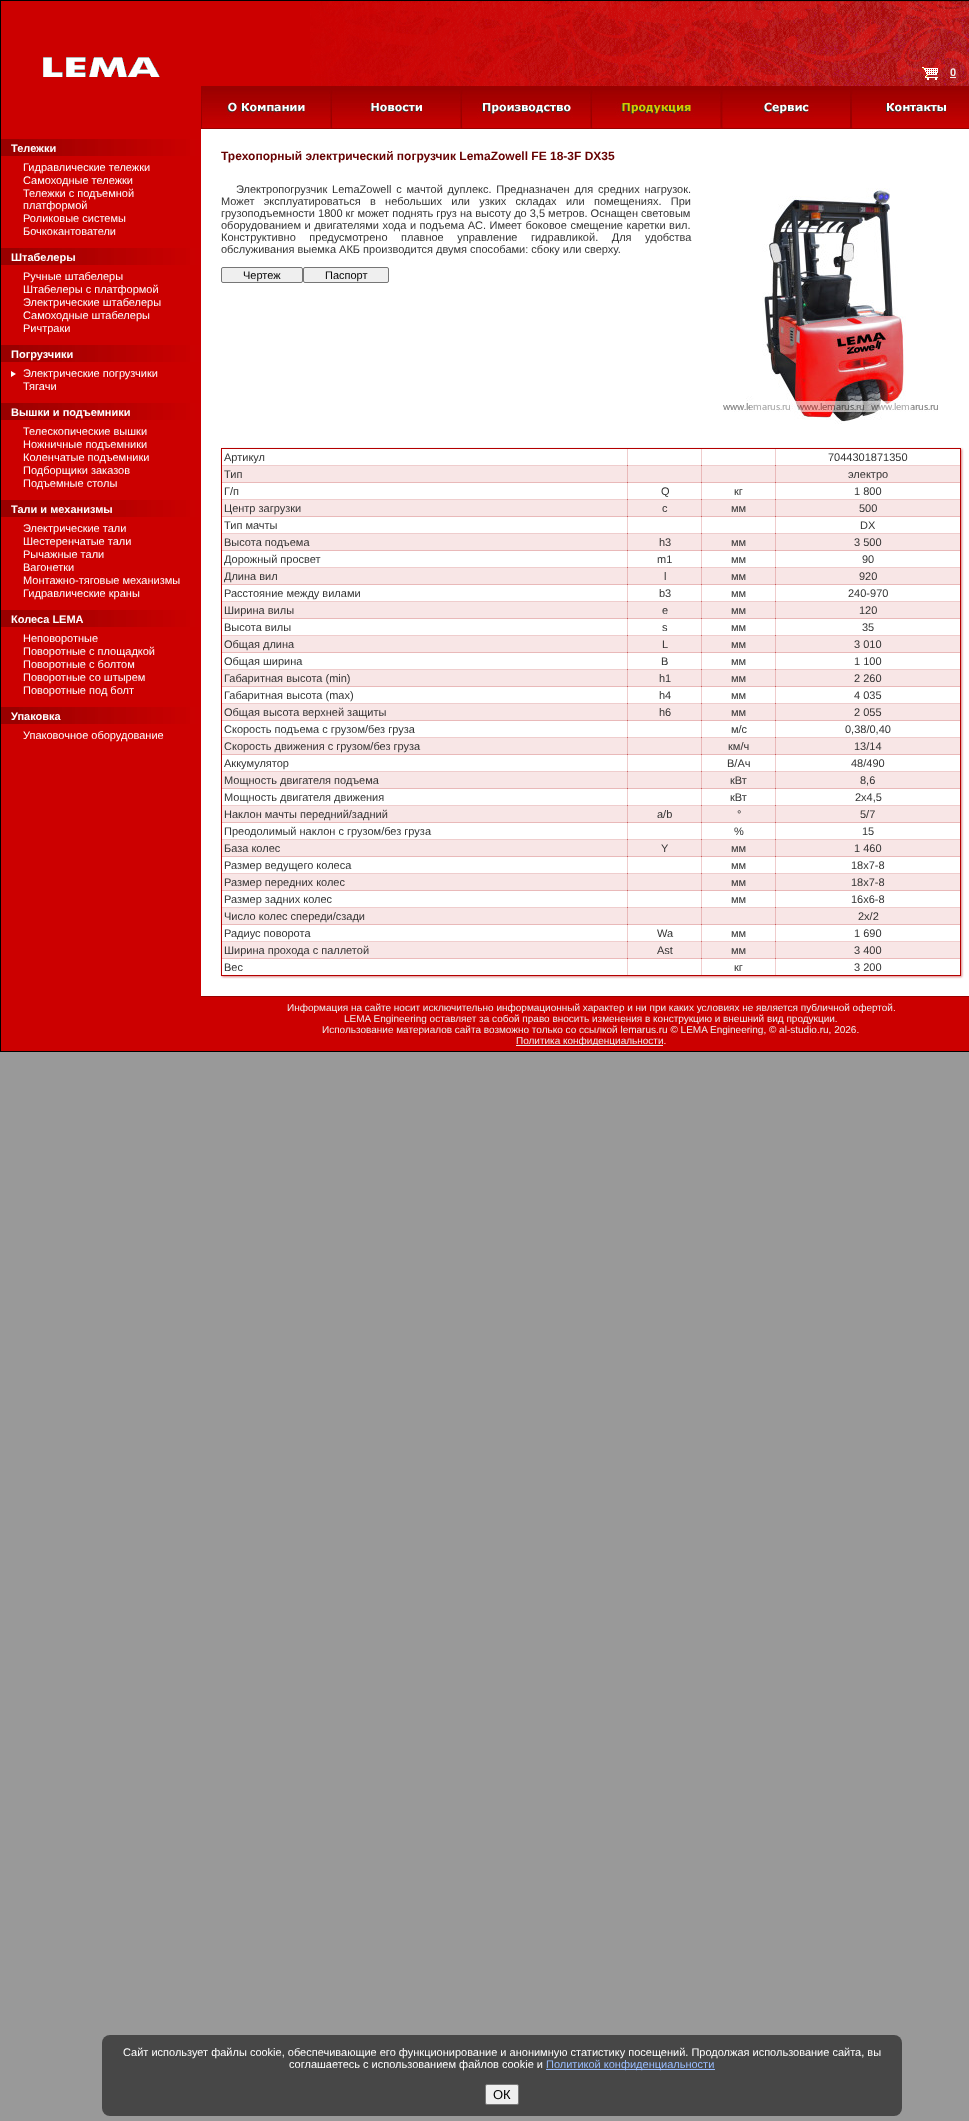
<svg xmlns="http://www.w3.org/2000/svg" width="969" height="2121">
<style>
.a{font:bold 11px Liberation Sans;fill:#eee}
.b{font:bold 11px Liberation Sans;fill:#fff}
.c{font:11px Liberation Sans;fill:#fff}
.d{font:bold 12px Liberation Sans;fill:#600}
.e{font:11px Liberation Sans;fill:#333}
.f{font:11px Liberation Sans;fill:#000}
.g{font:10px Liberation Sans;fill:#eee}
.h{font:11px Liberation Sans;fill:#99bdff}
.i{font:13px Liberation Sans;fill:#000}
</style>
<defs>
<clipPath id="clip1"><path d="M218 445h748v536h-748zm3 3h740v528h-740z" clip-rule="evenodd"/></clipPath>
</defs>
<rect width="100%" height="100%" fill="#999"/>
<path fill="#c00" d="M1 1h309v128H1z"/>
<image href="1.png" x="310" y="1" width="659" height="85"/>
<path fill="#000" d="M0 0h969v1H0z"/>
<path fill="#000" d="M0 0h1v996H0z"/>
<image href="2.png" x="43" y="57" width="117" height="20"/>
<image href="3.png" x="922" y="67" width="16" height="13"/>
<path fill="#eee" d="M950 77h6v1H950z"/>
<image href="4.png" x="201" y="86" width="130" height="43"/>
<image href="5.png" x="331" y="86" width="130" height="43"/>
<image href="6.png" x="461" y="86" width="130" height="43"/>
<image href="7.png" x="591" y="86" width="130" height="43"/>
<image href="8.png" x="721" y="86" width="130" height="43"/>
<image href="9.png" x="851" y="86" width="118" height="43"/>
<path fill="#c00" d="M1 129h200v867H1z"/>
<path fill="#fff" d="M201 129h768v867H201z"/>
<path fill="#f8e6e6" d="M221 941h555v1H221z"/>
<path fill="#e6a7a7" d="M627 941h1v1H627z"/>
<path fill="#e6a7a7" d="M701 941h1v1H701z"/>
<path fill="#f1cfcf" d="M775 941h186v1H775z"/>
<path fill="#e19696" d="M775 941h1v1H775z"/>
<path fill="#f1cfcf" d="M627 958h1v18H627z"/>
<path fill="#f1cfcf" d="M701 958h1v18H701z"/>
<path fill="#f1cfcf" d="M775 958h1v18H775z"/>
<path fill="#900" d="M1 139h18v17H1z"/>
<image href="10.png" x="19" y="139" width="182" height="17"/>
<path fill="#900" d="M1 248h18v17H1z"/>
<image href="10.png" x="19" y="248" width="182" height="17"/>
<path fill="#900" d="M1 345h18v17H1z"/>
<image href="10.png" x="19" y="345" width="182" height="17"/>
<image href="11.png" x="11" y="371" width="5" height="6"/>
<path fill="#900" d="M1 403h18v17H1z"/>
<image href="10.png" x="19" y="403" width="182" height="17"/>
<path fill="#900" d="M1 500h18v17H1z"/>
<image href="10.png" x="19" y="500" width="182" height="17"/>
<path fill="#900" d="M1 610h18v17H1z"/>
<image href="10.png" x="19" y="610" width="182" height="17"/>
<path fill="#900" d="M1 707h18v17H1z"/>
<image href="10.png" x="19" y="707" width="182" height="17"/>
<image href="12.png" x="723" y="188" width="215" height="236"/>
<rect fill="#efefef" stroke="#767676" x="221.5" y="267.5" width="81" height="15" rx="1.5"/>
<rect fill="#efefef" stroke="#767676" x="303.5" y="267.5" width="85" height="15" rx="1.5"/>
<g clip-path="url(#clip1)">
<path fill="#b4000080" filter="blur(1px)" d="M222 449h740v528H222z"/>
</g>
<path fill="#b40000" d="M221 448h740v1H221z"/>
<path fill="#ebbaba" d="M775 942h1v17H775z"/>
<path fill="#ebbaba" d="M702 958h259v1H702z"/>
<path fill="#b40000" d="M960 448h1v528H960z"/>
<path fill="#b40000" d="M221 975h740v1H221z"/>
<path fill="#b40000" d="M221 448h1v528H221z"/>
<path fill="#b400001a" d="M775 465h186v1H775z"/>
<path fill="#f8e6e6" d="M222 466h738v17H222z"/>
<path fill="#b400001a" d="M775 482h186v1H775z"/>
<path fill="#b400001a" d="M775 499h186v1H775z"/>
<path fill="#f8e6e6" d="M222 500h738v17H222z"/>
<path fill="#b400001a" d="M775 516h186v1H775z"/>
<path fill="#b400001a" d="M775 533h186v1H775z"/>
<path fill="#f8e6e6" d="M222 534h738v17H222z"/>
<path fill="#b400001a" d="M775 550h186v1H775z"/>
<path fill="#b400001a" d="M775 567h186v1H775z"/>
<path fill="#f8e6e6" d="M222 568h738v17H222z"/>
<path fill="#b400001a" d="M775 584h186v1H775z"/>
<path fill="#b400001a" d="M775 601h186v1H775z"/>
<path fill="#f8e6e6" d="M222 602h738v17H222z"/>
<path fill="#b400001a" d="M775 618h186v1H775z"/>
<path fill="#b400001a" d="M775 635h186v1H775z"/>
<path fill="#f8e6e6" d="M222 636h738v17H222z"/>
<path fill="#b400001a" d="M775 652h186v1H775z"/>
<path fill="#b400001a" d="M775 669h186v1H775z"/>
<path fill="#f8e6e6" d="M222 670h738v17H222z"/>
<path fill="#b400001a" d="M775 686h186v1H775z"/>
<path fill="#b400001a" d="M775 703h186v1H775z"/>
<path fill="#f8e6e6" d="M222 704h738v17H222z"/>
<path fill="#b400001a" d="M775 720h186v1H775z"/>
<path fill="#b400001a" d="M775 737h186v1H775z"/>
<path fill="#f8e6e6" d="M222 738h738v17H222z"/>
<path fill="#b400001a" d="M775 754h186v1H775z"/>
<path fill="#b400001a" d="M775 771h186v1H775z"/>
<path fill="#f8e6e6" d="M222 772h738v17H222z"/>
<path fill="#b400001a" d="M775 788h186v1H775z"/>
<path fill="#b400001a" d="M775 805h186v1H775z"/>
<path fill="#f8e6e6" d="M222 806h738v17H222z"/>
<path fill="#b400001a" d="M775 822h186v1H775z"/>
<path fill="#b400001a" d="M775 839h186v1H775z"/>
<path fill="#f8e6e6" d="M222 840h738v17H222z"/>
<path fill="#b400001a" d="M775 856h186v1H775z"/>
<path fill="#b400001a" d="M775 873h186v1H775z"/>
<path fill="#f8e6e6" d="M222 874h738v17H222z"/>
<path fill="#b400001a" d="M775 890h186v1H775z"/>
<path fill="#b400001a" d="M775 907h186v1H775z"/>
<path fill="#f8e6e6" d="M222 908h738v17H222z"/>
<path fill="#b400001a" d="M775 924h186v1H775z"/>
<path fill="#b400001a" d="M775 924h1v18H775z"/>
<path fill="#b400001a" d="M701 924h75v1H701z"/>
<path fill="#b400001a" d="M775 924h1v18H775z"/>
<path fill="#b400001a" d="M775 924h186v1H775z"/>
<path fill="#b400001a" d="M775 907h1v18H775z"/>
<path fill="#b400001a" d="M701 907h75v1H701z"/>
<path fill="#b400001a" d="M775 907h1v18H775z"/>
<path fill="#b400001a" d="M775 907h186v1H775z"/>
<path fill="#b400001a" d="M775 890h1v18H775z"/>
<path fill="#b400001a" d="M701 890h75v1H701z"/>
<path fill="#b400001a" d="M775 890h1v18H775z"/>
<path fill="#b400001a" d="M775 890h186v1H775z"/>
<path fill="#b400001a" d="M775 873h1v18H775z"/>
<path fill="#b400001a" d="M701 873h75v1H701z"/>
<path fill="#b400001a" d="M775 873h1v18H775z"/>
<path fill="#b400001a" d="M775 873h186v1H775z"/>
<path fill="#b400001a" d="M775 856h1v18H775z"/>
<path fill="#b400001a" d="M701 856h75v1H701z"/>
<path fill="#b400001a" d="M775 856h1v18H775z"/>
<path fill="#b400001a" d="M775 856h186v1H775z"/>
<path fill="#b400001a" d="M775 839h1v18H775z"/>
<path fill="#b400001a" d="M701 839h75v1H701z"/>
<path fill="#b400001a" d="M775 839h1v18H775z"/>
<path fill="#b400001a" d="M775 839h186v1H775z"/>
<path fill="#b400001a" d="M775 822h1v18H775z"/>
<path fill="#b400001a" d="M701 822h75v1H701z"/>
<path fill="#b400001a" d="M775 822h1v18H775z"/>
<path fill="#b400001a" d="M775 822h186v1H775z"/>
<path fill="#b400001a" d="M775 805h1v18H775z"/>
<path fill="#b400001a" d="M701 805h75v1H701z"/>
<path fill="#b400001a" d="M775 805h1v18H775z"/>
<path fill="#b400001a" d="M775 805h186v1H775z"/>
<path fill="#b400001a" d="M775 788h1v18H775z"/>
<path fill="#b400001a" d="M701 788h75v1H701z"/>
<path fill="#b400001a" d="M775 788h1v18H775z"/>
<path fill="#b400001a" d="M775 788h186v1H775z"/>
<path fill="#b400001a" d="M775 771h1v18H775z"/>
<path fill="#b400001a" d="M701 771h75v1H701z"/>
<path fill="#b400001a" d="M775 771h1v18H775z"/>
<path fill="#b400001a" d="M775 771h186v1H775z"/>
<path fill="#b400001a" d="M775 754h1v18H775z"/>
<path fill="#b400001a" d="M701 754h75v1H701z"/>
<path fill="#b400001a" d="M775 754h1v18H775z"/>
<path fill="#b400001a" d="M775 754h186v1H775z"/>
<path fill="#b400001a" d="M775 737h1v18H775z"/>
<path fill="#b400001a" d="M701 737h75v1H701z"/>
<path fill="#b400001a" d="M775 737h1v18H775z"/>
<path fill="#b400001a" d="M775 737h186v1H775z"/>
<path fill="#b400001a" d="M775 720h1v18H775z"/>
<path fill="#b400001a" d="M701 720h75v1H701z"/>
<path fill="#b400001a" d="M775 720h1v18H775z"/>
<path fill="#b400001a" d="M775 720h186v1H775z"/>
<path fill="#b400001a" d="M775 703h1v18H775z"/>
<path fill="#b400001a" d="M701 703h75v1H701z"/>
<path fill="#b400001a" d="M775 703h1v18H775z"/>
<path fill="#b400001a" d="M775 703h186v1H775z"/>
<path fill="#b400001a" d="M775 686h1v18H775z"/>
<path fill="#b400001a" d="M701 686h75v1H701z"/>
<path fill="#b400001a" d="M775 686h1v18H775z"/>
<path fill="#b400001a" d="M775 686h186v1H775z"/>
<path fill="#b400001a" d="M775 669h1v18H775z"/>
<path fill="#b400001a" d="M701 669h75v1H701z"/>
<path fill="#b400001a" d="M775 669h1v18H775z"/>
<path fill="#b400001a" d="M775 669h186v1H775z"/>
<path fill="#b400001a" d="M775 652h1v18H775z"/>
<path fill="#b400001a" d="M701 652h75v1H701z"/>
<path fill="#b400001a" d="M775 652h1v18H775z"/>
<path fill="#b400001a" d="M775 652h186v1H775z"/>
<path fill="#b400001a" d="M775 635h1v18H775z"/>
<path fill="#b400001a" d="M701 635h75v1H701z"/>
<path fill="#b400001a" d="M775 635h1v18H775z"/>
<path fill="#b400001a" d="M775 635h186v1H775z"/>
<path fill="#b400001a" d="M775 618h1v18H775z"/>
<path fill="#b400001a" d="M701 618h75v1H701z"/>
<path fill="#b400001a" d="M775 618h1v18H775z"/>
<path fill="#b400001a" d="M775 618h186v1H775z"/>
<path fill="#b400001a" d="M775 601h1v18H775z"/>
<path fill="#b400001a" d="M701 601h75v1H701z"/>
<path fill="#b400001a" d="M775 601h1v18H775z"/>
<path fill="#b400001a" d="M775 601h186v1H775z"/>
<path fill="#b400001a" d="M775 584h1v18H775z"/>
<path fill="#b400001a" d="M701 584h75v1H701z"/>
<path fill="#b400001a" d="M775 584h1v18H775z"/>
<path fill="#b400001a" d="M775 584h186v1H775z"/>
<path fill="#b400001a" d="M775 567h1v18H775z"/>
<path fill="#b400001a" d="M701 567h75v1H701z"/>
<path fill="#b400001a" d="M775 567h1v18H775z"/>
<path fill="#b400001a" d="M775 567h186v1H775z"/>
<path fill="#b400001a" d="M775 550h1v18H775z"/>
<path fill="#b400001a" d="M701 550h75v1H701z"/>
<path fill="#b400001a" d="M775 550h1v18H775z"/>
<path fill="#b400001a" d="M775 550h186v1H775z"/>
<path fill="#b400001a" d="M775 533h1v18H775z"/>
<path fill="#b400001a" d="M701 533h75v1H701z"/>
<path fill="#b400001a" d="M775 533h1v18H775z"/>
<path fill="#b400001a" d="M775 533h186v1H775z"/>
<path fill="#b400001a" d="M775 516h1v18H775z"/>
<path fill="#b400001a" d="M701 516h75v1H701z"/>
<path fill="#b400001a" d="M775 516h1v18H775z"/>
<path fill="#b400001a" d="M775 516h186v1H775z"/>
<path fill="#b400001a" d="M775 499h1v18H775z"/>
<path fill="#b400001a" d="M701 499h75v1H701z"/>
<path fill="#b400001a" d="M775 499h1v18H775z"/>
<path fill="#b400001a" d="M775 499h186v1H775z"/>
<path fill="#b400001a" d="M775 482h1v18H775z"/>
<path fill="#b400001a" d="M701 482h75v1H701z"/>
<path fill="#b400001a" d="M775 482h1v18H775z"/>
<path fill="#b400001a" d="M775 482h186v1H775z"/>
<path fill="#b400001a" d="M775 465h1v18H775z"/>
<path fill="#b400001a" d="M701 465h75v1H701z"/>
<path fill="#b400001a" d="M775 465h1v18H775z"/>
<path fill="#b400001a" d="M775 465h186v1H775z"/>
<path fill="#b400001a" d="M775 448h1v18H775z"/>
<path fill="#b400001a" d="M775 448h1v18H775z"/>
<path fill="#b400001a" d="M701 941h75v1H701z"/>
<path fill="#b400001a" d="M701 924h1v18H701z"/>
<path fill="#b400001a" d="M627 924h75v1H627z"/>
<path fill="#b400001a" d="M701 924h1v18H701z"/>
<path fill="#b400001a" d="M701 924h75v1H701z"/>
<path fill="#b400001a" d="M701 907h1v18H701z"/>
<path fill="#b400001a" d="M627 907h75v1H627z"/>
<path fill="#b400001a" d="M701 907h1v18H701z"/>
<path fill="#b400001a" d="M701 907h75v1H701z"/>
<path fill="#b400001a" d="M701 890h1v18H701z"/>
<path fill="#b400001a" d="M627 890h75v1H627z"/>
<path fill="#b400001a" d="M701 890h1v18H701z"/>
<path fill="#b400001a" d="M701 890h75v1H701z"/>
<path fill="#b400001a" d="M701 873h1v18H701z"/>
<path fill="#b400001a" d="M627 873h75v1H627z"/>
<path fill="#b400001a" d="M701 873h1v18H701z"/>
<path fill="#b400001a" d="M701 873h75v1H701z"/>
<path fill="#b400001a" d="M701 856h1v18H701z"/>
<path fill="#b400001a" d="M627 856h75v1H627z"/>
<path fill="#b400001a" d="M701 856h1v18H701z"/>
<path fill="#b400001a" d="M701 856h75v1H701z"/>
<path fill="#b400001a" d="M701 839h1v18H701z"/>
<path fill="#b400001a" d="M627 839h75v1H627z"/>
<path fill="#b400001a" d="M701 839h1v18H701z"/>
<path fill="#b400001a" d="M701 839h75v1H701z"/>
<path fill="#b400001a" d="M701 822h1v18H701z"/>
<path fill="#b400001a" d="M627 822h75v1H627z"/>
<path fill="#b400001a" d="M701 822h1v18H701z"/>
<path fill="#b400001a" d="M701 822h75v1H701z"/>
<path fill="#b400001a" d="M701 805h1v18H701z"/>
<path fill="#b400001a" d="M627 805h75v1H627z"/>
<path fill="#b400001a" d="M701 805h1v18H701z"/>
<path fill="#b400001a" d="M701 805h75v1H701z"/>
<path fill="#b400001a" d="M701 788h1v18H701z"/>
<path fill="#b400001a" d="M627 788h75v1H627z"/>
<path fill="#b400001a" d="M701 788h1v18H701z"/>
<path fill="#b400001a" d="M701 788h75v1H701z"/>
<path fill="#b400001a" d="M701 771h1v18H701z"/>
<path fill="#b400001a" d="M627 771h75v1H627z"/>
<path fill="#b400001a" d="M701 771h1v18H701z"/>
<path fill="#b400001a" d="M701 771h75v1H701z"/>
<path fill="#b400001a" d="M701 754h1v18H701z"/>
<path fill="#b400001a" d="M627 754h75v1H627z"/>
<path fill="#b400001a" d="M701 754h1v18H701z"/>
<path fill="#b400001a" d="M701 754h75v1H701z"/>
<path fill="#b400001a" d="M701 737h1v18H701z"/>
<path fill="#b400001a" d="M627 737h75v1H627z"/>
<path fill="#b400001a" d="M701 737h1v18H701z"/>
<path fill="#b400001a" d="M701 737h75v1H701z"/>
<path fill="#b400001a" d="M701 720h1v18H701z"/>
<path fill="#b400001a" d="M627 720h75v1H627z"/>
<path fill="#b400001a" d="M701 720h1v18H701z"/>
<path fill="#b400001a" d="M701 720h75v1H701z"/>
<path fill="#b400001a" d="M701 703h1v18H701z"/>
<path fill="#b400001a" d="M627 703h75v1H627z"/>
<path fill="#b400001a" d="M701 703h1v18H701z"/>
<path fill="#b400001a" d="M701 703h75v1H701z"/>
<path fill="#b400001a" d="M701 686h1v18H701z"/>
<path fill="#b400001a" d="M627 686h75v1H627z"/>
<path fill="#b400001a" d="M701 686h1v18H701z"/>
<path fill="#b400001a" d="M701 686h75v1H701z"/>
<path fill="#b400001a" d="M701 669h1v18H701z"/>
<path fill="#b400001a" d="M627 669h75v1H627z"/>
<path fill="#b400001a" d="M701 669h1v18H701z"/>
<path fill="#b400001a" d="M701 669h75v1H701z"/>
<path fill="#b400001a" d="M701 652h1v18H701z"/>
<path fill="#b400001a" d="M627 652h75v1H627z"/>
<path fill="#b400001a" d="M701 652h1v18H701z"/>
<path fill="#b400001a" d="M701 652h75v1H701z"/>
<path fill="#b400001a" d="M701 635h1v18H701z"/>
<path fill="#b400001a" d="M627 635h75v1H627z"/>
<path fill="#b400001a" d="M701 635h1v18H701z"/>
<path fill="#b400001a" d="M701 635h75v1H701z"/>
<path fill="#b400001a" d="M701 618h1v18H701z"/>
<path fill="#b400001a" d="M627 618h75v1H627z"/>
<path fill="#b400001a" d="M701 618h1v18H701z"/>
<path fill="#b400001a" d="M701 618h75v1H701z"/>
<path fill="#b400001a" d="M701 601h1v18H701z"/>
<path fill="#b400001a" d="M627 601h75v1H627z"/>
<path fill="#b400001a" d="M701 601h1v18H701z"/>
<path fill="#b400001a" d="M701 601h75v1H701z"/>
<path fill="#b400001a" d="M701 584h1v18H701z"/>
<path fill="#b400001a" d="M627 584h75v1H627z"/>
<path fill="#b400001a" d="M701 584h1v18H701z"/>
<path fill="#b400001a" d="M701 584h75v1H701z"/>
<path fill="#b400001a" d="M701 567h1v18H701z"/>
<path fill="#b400001a" d="M627 567h75v1H627z"/>
<path fill="#b400001a" d="M701 567h1v18H701z"/>
<path fill="#b400001a" d="M701 567h75v1H701z"/>
<path fill="#b400001a" d="M701 550h1v18H701z"/>
<path fill="#b400001a" d="M627 550h75v1H627z"/>
<path fill="#b400001a" d="M701 550h1v18H701z"/>
<path fill="#b400001a" d="M701 550h75v1H701z"/>
<path fill="#b400001a" d="M701 533h1v18H701z"/>
<path fill="#b400001a" d="M627 533h75v1H627z"/>
<path fill="#b400001a" d="M701 533h1v18H701z"/>
<path fill="#b400001a" d="M701 533h75v1H701z"/>
<path fill="#b400001a" d="M701 516h1v18H701z"/>
<path fill="#b400001a" d="M627 516h75v1H627z"/>
<path fill="#b400001a" d="M701 516h1v18H701z"/>
<path fill="#b400001a" d="M701 516h75v1H701z"/>
<path fill="#b400001a" d="M701 499h1v18H701z"/>
<path fill="#b400001a" d="M627 499h75v1H627z"/>
<path fill="#b400001a" d="M701 499h1v18H701z"/>
<path fill="#b400001a" d="M701 499h75v1H701z"/>
<path fill="#b400001a" d="M701 482h1v18H701z"/>
<path fill="#b400001a" d="M627 482h75v1H627z"/>
<path fill="#b400001a" d="M701 482h1v18H701z"/>
<path fill="#b400001a" d="M701 482h75v1H701z"/>
<path fill="#b400001a" d="M701 465h1v18H701z"/>
<path fill="#b400001a" d="M627 465h75v1H627z"/>
<path fill="#b400001a" d="M701 465h1v18H701z"/>
<path fill="#b400001a" d="M701 465h75v1H701z"/>
<path fill="#b400001a" d="M701 448h1v18H701z"/>
<path fill="#b400001a" d="M701 448h1v18H701z"/>
<path fill="#b400001a" d="M627 941h75v1H627z"/>
<path fill="#b400001a" d="M627 924h1v18H627z"/>
<path fill="#b400001a" d="M221 924h407v1H221z"/>
<path fill="#b400001a" d="M627 924h1v18H627z"/>
<path fill="#b400001a" d="M627 924h75v1H627z"/>
<path fill="#b400001a" d="M627 907h1v18H627z"/>
<path fill="#b400001a" d="M221 907h407v1H221z"/>
<path fill="#b400001a" d="M627 907h1v18H627z"/>
<path fill="#b400001a" d="M627 907h75v1H627z"/>
<path fill="#b400001a" d="M627 890h1v18H627z"/>
<path fill="#b400001a" d="M221 890h407v1H221z"/>
<path fill="#b400001a" d="M627 890h1v18H627z"/>
<path fill="#b400001a" d="M627 890h75v1H627z"/>
<path fill="#b400001a" d="M627 873h1v18H627z"/>
<path fill="#b400001a" d="M221 873h407v1H221z"/>
<path fill="#b400001a" d="M627 873h1v18H627z"/>
<path fill="#b400001a" d="M627 873h75v1H627z"/>
<path fill="#b400001a" d="M627 856h1v18H627z"/>
<path fill="#b400001a" d="M221 856h407v1H221z"/>
<path fill="#b400001a" d="M627 856h1v18H627z"/>
<path fill="#b400001a" d="M627 856h75v1H627z"/>
<path fill="#b400001a" d="M627 839h1v18H627z"/>
<path fill="#b400001a" d="M221 839h407v1H221z"/>
<path fill="#b400001a" d="M627 839h1v18H627z"/>
<path fill="#b400001a" d="M627 839h75v1H627z"/>
<path fill="#b400001a" d="M627 822h1v18H627z"/>
<path fill="#b400001a" d="M221 822h407v1H221z"/>
<path fill="#b400001a" d="M627 822h1v18H627z"/>
<path fill="#b400001a" d="M627 822h75v1H627z"/>
<path fill="#b400001a" d="M627 805h1v18H627z"/>
<path fill="#b400001a" d="M221 805h407v1H221z"/>
<path fill="#b400001a" d="M627 805h1v18H627z"/>
<path fill="#b400001a" d="M627 805h75v1H627z"/>
<path fill="#b400001a" d="M627 788h1v18H627z"/>
<path fill="#b400001a" d="M221 788h407v1H221z"/>
<path fill="#b400001a" d="M627 788h1v18H627z"/>
<path fill="#b400001a" d="M627 788h75v1H627z"/>
<path fill="#b400001a" d="M627 771h1v18H627z"/>
<path fill="#b400001a" d="M221 771h407v1H221z"/>
<path fill="#b400001a" d="M627 771h1v18H627z"/>
<path fill="#b400001a" d="M627 771h75v1H627z"/>
<path fill="#b400001a" d="M627 754h1v18H627z"/>
<path fill="#b400001a" d="M221 754h407v1H221z"/>
<path fill="#b400001a" d="M627 754h1v18H627z"/>
<path fill="#b400001a" d="M627 754h75v1H627z"/>
<path fill="#b400001a" d="M627 737h1v18H627z"/>
<path fill="#b400001a" d="M221 737h407v1H221z"/>
<path fill="#b400001a" d="M627 737h1v18H627z"/>
<path fill="#b400001a" d="M627 737h75v1H627z"/>
<path fill="#b400001a" d="M627 720h1v18H627z"/>
<path fill="#b400001a" d="M221 720h407v1H221z"/>
<path fill="#b400001a" d="M627 720h1v18H627z"/>
<path fill="#b400001a" d="M627 720h75v1H627z"/>
<path fill="#b400001a" d="M627 703h1v18H627z"/>
<path fill="#b400001a" d="M221 703h407v1H221z"/>
<path fill="#b400001a" d="M627 703h1v18H627z"/>
<path fill="#b400001a" d="M627 703h75v1H627z"/>
<path fill="#b400001a" d="M627 686h1v18H627z"/>
<path fill="#b400001a" d="M221 686h407v1H221z"/>
<path fill="#b400001a" d="M627 686h1v18H627z"/>
<path fill="#b400001a" d="M627 686h75v1H627z"/>
<path fill="#b400001a" d="M627 669h1v18H627z"/>
<path fill="#b400001a" d="M221 669h407v1H221z"/>
<path fill="#b400001a" d="M627 669h1v18H627z"/>
<path fill="#b400001a" d="M627 669h75v1H627z"/>
<path fill="#b400001a" d="M627 652h1v18H627z"/>
<path fill="#b400001a" d="M221 652h407v1H221z"/>
<path fill="#b400001a" d="M627 652h1v18H627z"/>
<path fill="#b400001a" d="M627 652h75v1H627z"/>
<path fill="#b400001a" d="M627 635h1v18H627z"/>
<path fill="#b400001a" d="M221 635h407v1H221z"/>
<path fill="#b400001a" d="M627 635h1v18H627z"/>
<path fill="#b400001a" d="M627 635h75v1H627z"/>
<path fill="#b400001a" d="M627 618h1v18H627z"/>
<path fill="#b400001a" d="M221 618h407v1H221z"/>
<path fill="#b400001a" d="M627 618h1v18H627z"/>
<path fill="#b400001a" d="M627 618h75v1H627z"/>
<path fill="#b400001a" d="M627 601h1v18H627z"/>
<path fill="#b400001a" d="M221 601h407v1H221z"/>
<path fill="#b400001a" d="M627 601h1v18H627z"/>
<path fill="#b400001a" d="M627 601h75v1H627z"/>
<path fill="#b400001a" d="M627 584h1v18H627z"/>
<path fill="#b400001a" d="M221 584h407v1H221z"/>
<path fill="#b400001a" d="M627 584h1v18H627z"/>
<path fill="#b400001a" d="M627 584h75v1H627z"/>
<path fill="#b400001a" d="M627 567h1v18H627z"/>
<path fill="#b400001a" d="M221 567h407v1H221z"/>
<path fill="#b400001a" d="M627 567h1v18H627z"/>
<path fill="#b400001a" d="M627 567h75v1H627z"/>
<path fill="#b400001a" d="M627 550h1v18H627z"/>
<path fill="#b400001a" d="M221 550h407v1H221z"/>
<path fill="#b400001a" d="M627 550h1v18H627z"/>
<path fill="#b400001a" d="M627 550h75v1H627z"/>
<path fill="#b400001a" d="M627 533h1v18H627z"/>
<path fill="#b400001a" d="M221 533h407v1H221z"/>
<path fill="#b400001a" d="M627 533h1v18H627z"/>
<path fill="#b400001a" d="M627 533h75v1H627z"/>
<path fill="#b400001a" d="M627 516h1v18H627z"/>
<path fill="#b400001a" d="M221 516h407v1H221z"/>
<path fill="#b400001a" d="M627 516h1v18H627z"/>
<path fill="#b400001a" d="M627 516h75v1H627z"/>
<path fill="#b400001a" d="M627 499h1v18H627z"/>
<path fill="#b400001a" d="M221 499h407v1H221z"/>
<path fill="#b400001a" d="M627 499h1v18H627z"/>
<path fill="#b400001a" d="M627 499h75v1H627z"/>
<path fill="#b400001a" d="M627 482h1v18H627z"/>
<path fill="#b400001a" d="M221 482h407v1H221z"/>
<path fill="#b400001a" d="M627 482h1v18H627z"/>
<path fill="#b400001a" d="M627 482h75v1H627z"/>
<path fill="#b400001a" d="M627 465h1v18H627z"/>
<path fill="#b400001a" d="M221 465h407v1H221z"/>
<path fill="#b400001a" d="M627 465h1v18H627z"/>
<path fill="#b400001a" d="M627 465h75v1H627z"/>
<path fill="#b400001a" d="M627 448h1v18H627z"/>
<path fill="#b400001a" d="M627 448h1v18H627z"/>
<path fill="#b400001a" d="M221 465h407v1H221z"/>
<path fill="#b400001a" d="M221 482h407v1H221z"/>
<path fill="#b400001a" d="M221 499h407v1H221z"/>
<path fill="#b400001a" d="M221 516h407v1H221z"/>
<path fill="#b400001a" d="M221 533h407v1H221z"/>
<path fill="#b400001a" d="M221 550h407v1H221z"/>
<path fill="#b400001a" d="M221 567h407v1H221z"/>
<path fill="#b400001a" d="M221 584h407v1H221z"/>
<path fill="#b400001a" d="M221 601h407v1H221z"/>
<path fill="#b400001a" d="M221 618h407v1H221z"/>
<path fill="#b400001a" d="M221 635h407v1H221z"/>
<path fill="#b400001a" d="M221 652h407v1H221z"/>
<path fill="#b400001a" d="M221 669h407v1H221z"/>
<path fill="#b400001a" d="M221 686h407v1H221z"/>
<path fill="#b400001a" d="M221 703h407v1H221z"/>
<path fill="#b400001a" d="M221 720h407v1H221z"/>
<path fill="#b400001a" d="M221 737h407v1H221z"/>
<path fill="#b400001a" d="M221 754h407v1H221z"/>
<path fill="#b400001a" d="M221 771h407v1H221z"/>
<path fill="#b400001a" d="M221 788h407v1H221z"/>
<path fill="#b400001a" d="M221 805h407v1H221z"/>
<path fill="#b400001a" d="M221 822h407v1H221z"/>
<path fill="#b400001a" d="M221 839h407v1H221z"/>
<path fill="#b400001a" d="M221 856h407v1H221z"/>
<path fill="#b400001a" d="M221 873h407v1H221z"/>
<path fill="#b400001a" d="M221 890h407v1H221z"/>
<path fill="#b400001a" d="M221 907h407v1H221z"/>
<path fill="#b400001a" d="M221 924h407v1H221z"/>
<path fill="#b400001a" d="M221 941h407v1H221z"/>
<path fill="#f8e6e6" d="M222 942h405v16H222z"/>
<path fill="#ebbaba" d="M627 942h1v17H627z"/>
<path fill="#ebbaba" d="M222 958h406v1H222z"/>
<path fill="#d26363" d="M627 958h1v1H627z"/>
<path fill="#f8e6e6" d="M628 942h73v16H628z"/>
<path fill="#ebbaba" d="M701 942h1v17H701z"/>
<path fill="#ebbaba" d="M628 958h74v1H628z"/>
<path fill="#d26363" d="M701 958h1v1H701z"/>
<path fill="#f8e6e6" d="M702 942h73v16H702z"/>
<path fill="#d26363" d="M775 958h1v1H775z"/>
<path fill="#f8e6e6" d="M776 942h184v16H776z"/>
<path fill="#c00" d="M1 996h968v55H1z"/>
<path fill="#000" d="M0 1051h969v1H0z"/>
<path fill="#000" d="M0 996h1v56H0z"/>
<path fill="#900" d="M201 996h768v1H201z"/>
<path fill="#eee" d="M516 1045h147v1H516z"/>
<rect fill="#474747" x="102" y="2035" width="800" height="81" rx="8"/>
<path fill="#99bdff" d="M546 2069h169v1H546z"/>
<rect fill="#efefef" stroke="#767676" x="485.5" y="2084.5" width="33" height="20" rx="1.5"/>
<text class="a" x="950" y="76">0</text>
<text class="b" x="11" y="152">Тележки</text>
<text class="c" x="23" y="171">Гидравлические тележки</text>
<text class="c" x="23" y="184">Самоходные тележки</text>
<text class="c" x="23" y="197">Тележки с подъемной</text>
<text class="c" x="23" y="209">платформой</text>
<text class="c" x="23" y="222">Роликовые системы</text>
<text class="c" x="23" y="235">Бочкокантователи</text>
<text class="b" x="11" y="261">Штабелеры</text>
<text class="c" x="23" y="280">Ручные штабелеры</text>
<text class="c" x="23" y="293">Штабелеры с платформой</text>
<text class="c" x="23" y="306">Электрические штабелеры</text>
<text class="c" x="23" y="319">Самоходные штабелеры</text>
<text class="c" x="23" y="332">Ричтраки</text>
<text class="b" x="11" y="358">Погрузчики</text>
<text class="c" x="23" y="377">Электрические погрузчики</text>
<text class="c" x="23" y="390">Тягачи</text>
<text class="b" x="11" y="416">Вышки и подъемники</text>
<text class="c" x="23" y="435">Телескопические вышки</text>
<text class="c" x="23" y="448">Ножничные подъемники</text>
<text class="c" x="23" y="461">Коленчатые подъемники</text>
<text class="c" x="23" y="474">Подборщики заказов</text>
<text class="c" x="23" y="487">Подъемные столы</text>
<text class="b" x="11" y="513">Тали и механизмы</text>
<text class="c" x="23" y="532">Электрические тали</text>
<text class="c" x="23" y="545">Шестеренчатые тали</text>
<text class="c" x="23" y="558">Рычажные тали</text>
<text class="c" x="23" y="571">Вагонетки</text>
<text class="c" x="23" y="584">Монтажно-тяговые механизмы</text>
<text class="c" x="23" y="597">Гидравлические краны</text>
<text class="b" x="11" y="623">Колеса LEMA</text>
<text class="c" x="23" y="642">Неповоротные</text>
<text class="c" x="23" y="655">Поворотные с площадкой</text>
<text class="c" x="23" y="668">Поворотные с болтом</text>
<text class="c" x="23" y="681">Поворотные со штырем</text>
<text class="c" x="23" y="694">Поворотные под болт</text>
<text class="b" x="11" y="720">Упаковка</text>
<text class="c" x="23" y="739">Упаковочное оборудование</text>
<text class="d" x="221" y="160">Трехопорный электрический погрузчик LemaZowell FE 18-3F DX35</text>
<text class="e" x="236" y="193" word-spacing="1.75">Электропогрузчик LemaZowell с мачтой дуплекс. Предназначен для средних нагрузок.</text>
<text class="e" x="221" y="205" word-spacing="6.25">Может эксплуатироваться в небольших или узких складах или помещениях. При</text>
<text class="e" x="221" y="217">грузоподъемности 1800 кг может поднять груз на высоту до 3,5 метров. Оснащен световым</text>
<text class="e" x="221" y="229" word-spacing="0.5">оборудованием и двигателями хода и подъема АС. Имеет боковое смещение каретки вил.</text>
<text class="e" x="221" y="241" word-spacing="10.5">Конструктивно предусмотрено плавное управление гидравликой. Для удобства</text>
<text class="e" x="221" y="253">обслуживания выемка АКБ производится двумя способами: сбоку или сверху.</text>
<text class="f" x="243" y="279">Чертеж</text>
<text class="f" x="325" y="279">Паспорт</text>
<text class="e" x="224" y="461">Артикул</text>
<text class="e" x="828" y="461">7044301871350</text>
<text class="e" x="224" y="478">Тип</text>
<text class="e" x="848" y="478">электро</text>
<text class="e" x="224" y="495">Г/п</text>
<text class="e" x="661" y="495">Q</text>
<text class="e" x="734" y="495">кг</text>
<text class="e" x="854" y="495">1 800</text>
<text class="e" x="224" y="512">Центр загрузки</text>
<text class="e" x="662" y="512">c</text>
<text class="e" x="731" y="512">мм</text>
<text class="e" x="859" y="512">500</text>
<text class="e" x="224" y="529">Тип мачты</text>
<text class="e" x="860" y="529">DX</text>
<text class="e" x="224" y="546">Высота подъема</text>
<text class="e" x="659" y="546">h3</text>
<text class="e" x="731" y="546">мм</text>
<text class="e" x="854" y="546">3 500</text>
<text class="e" x="224" y="563">Дорожный просвет</text>
<text class="e" x="657" y="563">m1</text>
<text class="e" x="731" y="563">мм</text>
<text class="e" x="862" y="563">90</text>
<text class="e" x="224" y="580">Длина вил</text>
<text class="e" x="664" y="580">l</text>
<text class="e" x="731" y="580">мм</text>
<text class="e" x="859" y="580">920</text>
<text class="e" x="224" y="597">Расстояние между вилами</text>
<text class="e" x="659" y="597">b3</text>
<text class="e" x="731" y="597">мм</text>
<text class="e" x="848" y="597">240-970</text>
<text class="e" x="224" y="614">Ширина вилы</text>
<text class="e" x="662" y="614">e</text>
<text class="e" x="731" y="614">мм</text>
<text class="e" x="859" y="614">120</text>
<text class="e" x="224" y="631">Высота вилы</text>
<text class="e" x="662" y="631">s</text>
<text class="e" x="731" y="631">мм</text>
<text class="e" x="862" y="631">35</text>
<text class="e" x="224" y="648">Общая длина</text>
<text class="e" x="662" y="648">L</text>
<text class="e" x="731" y="648">мм</text>
<text class="e" x="854" y="648">3 010</text>
<text class="e" x="224" y="665">Общая ширина</text>
<text class="e" x="661" y="665">B</text>
<text class="e" x="731" y="665">мм</text>
<text class="e" x="854" y="665">1 100</text>
<text class="e" x="224" y="682">Габаритная высота (min)</text>
<text class="e" x="659" y="682">h1</text>
<text class="e" x="731" y="682">мм</text>
<text class="e" x="854" y="682">2 260</text>
<text class="e" x="224" y="699">Габаритная высота (max)</text>
<text class="e" x="659" y="699">h4</text>
<text class="e" x="731" y="699">мм</text>
<text class="e" x="854" y="699">4 035</text>
<text class="e" x="224" y="716">Общая высота верхней защиты</text>
<text class="e" x="659" y="716">h6</text>
<text class="e" x="731" y="716">мм</text>
<text class="e" x="854" y="716">2 055</text>
<text class="e" x="224" y="733">Скорость подъема с грузом/без груза</text>
<text class="e" x="731" y="733">м/с</text>
<text class="e" x="845" y="733">0,38/0,40</text>
<text class="e" x="224" y="750">Скорость движения с грузом/без груза</text>
<text class="e" x="728" y="750">км/ч</text>
<text class="e" x="854" y="750">13/14</text>
<text class="e" x="224" y="767">Аккумулятор</text>
<text class="e" x="727" y="767">В/Ач</text>
<text class="e" x="851" y="767">48/490</text>
<text class="e" x="224" y="784">Мощность двигателя подъема</text>
<text class="e" x="730" y="784">кВт</text>
<text class="e" x="860" y="784">8,6</text>
<text class="e" x="224" y="801">Мощность двигателя движения</text>
<text class="e" x="730" y="801">кВт</text>
<text class="e" x="855" y="801">2х4,5</text>
<text class="e" x="224" y="818">Наклон мачты передний/задний</text>
<text class="e" x="657" y="818">a/b</text>
<text class="e" x="737" y="818">°</text>
<text class="e" x="860" y="818">5/7</text>
<text class="e" x="224" y="835">Преодолимый наклон с грузом/без груза</text>
<text class="e" x="734" y="835">%</text>
<text class="e" x="862" y="835">15</text>
<text class="e" x="224" y="852">База колес</text>
<text class="e" x="661" y="852">Y</text>
<text class="e" x="731" y="852">мм</text>
<text class="e" x="854" y="852">1 460</text>
<text class="e" x="224" y="869">Размер ведущего колеса</text>
<text class="e" x="731" y="869">мм</text>
<text class="e" x="851" y="869">18х7-8</text>
<text class="e" x="224" y="886">Размер передних колес</text>
<text class="e" x="731" y="886">мм</text>
<text class="e" x="851" y="886">18x7-8</text>
<text class="e" x="224" y="903">Размер задних колес</text>
<text class="e" x="731" y="903">мм</text>
<text class="e" x="851" y="903">16х6-8</text>
<text class="e" x="224" y="920">Число колес спереди/сзади</text>
<text class="e" x="858" y="920">2x/2</text>
<text class="e" x="224" y="937">Радиус поворота</text>
<text class="e" x="657" y="937">Wa</text>
<text class="e" x="731" y="937">мм</text>
<text class="e" x="854" y="937">1 690</text>
<text class="e" x="224" y="954">Ширина прохода с паллетой</text>
<text class="e" x="657" y="954">Ast</text>
<text class="e" x="731" y="954">мм</text>
<text class="e" x="854" y="954">3 400</text>
<text class="e" x="224" y="971">Вес</text>
<text class="e" x="734" y="971">кг</text>
<text class="e" x="854" y="971">3 200</text>
<text class="g" x="287" y="1011">Информация на сайте носит исключительно информационный характер и ни при каких условиях не является публичной офертой.</text>
<text class="g" x="344" y="1022">LEMA Engineering оставляет за собой право вносить изменения в конструкцию и внешний вид продукции.</text>
<text class="g" x="322" y="1033">Использование материалов сайта возможно только со ссылкой lemarus.ru © LEMA Engineering, © al-studio.ru, 2026.</text>
<text class="g" x="516" y="1044">Политика конфиденциальности.</text>
<text class="c" x="123" y="2056">Сайт использует файлы cookie, обеспечивающие его функционирование и анонимную статистику посещений. Продолжая использование сайта, вы</text>
<text class="c" x="289" y="2068">соглашаетесь с использованием файлов cookie и</text>
<text class="h" x="546" y="2068">Политикой конфиденциальности</text>
<text class="i" x="493" y="2099">ОК</text>
</svg>
